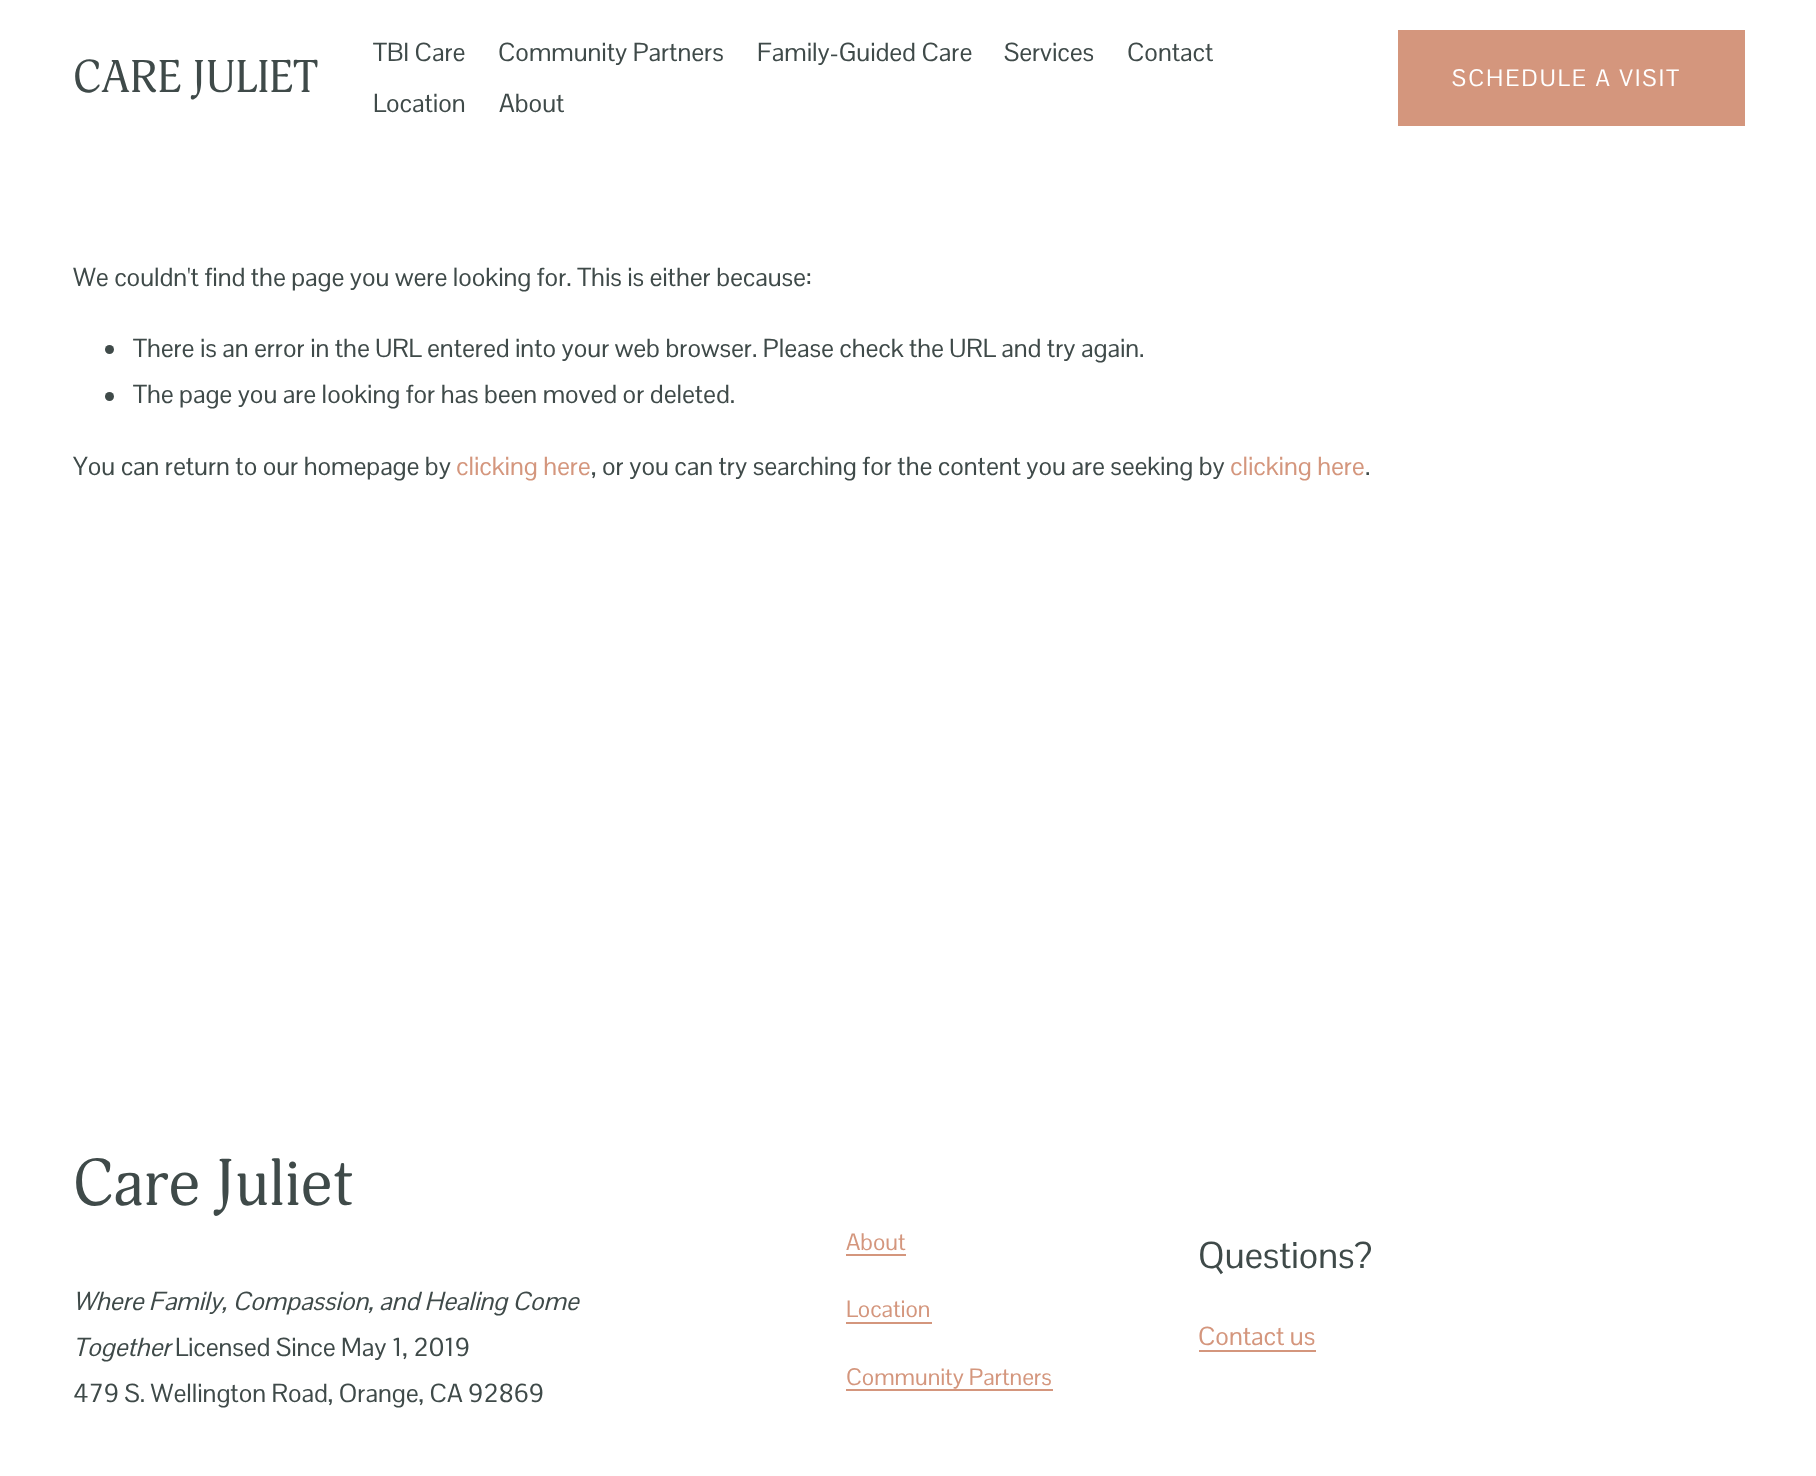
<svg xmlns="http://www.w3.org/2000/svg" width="1816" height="1476">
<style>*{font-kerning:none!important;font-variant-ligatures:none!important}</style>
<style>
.a{font:45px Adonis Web;fill:#3f4a49}
.b{font:25.5px Pontano Sans;fill:#3f4a49}
.c{font:23.25px Pontano Sans;letter-spacing:2.3px;fill:#fff}
.d{font:25.5px Pontano Sans;fill:#d4967d}
.e{font:64.75px Adonis Web;fill:#3f4a49}
.f{font:italic 25.5px Pontano Sans;fill:#3f4a49}
.g{font:23.25px Pontano Sans;fill:#d4967d}
.h{font:36.5px Pontano Sans;fill:#3f4a49}
</style>
<rect width="100%" height="100%" fill="#fff"/>
<path fill="#d4967d" d="M1398 30h347v96H1398z"/>
<circle fill="#3f4a49" cx="109.5" cy="349.5" r="4.5"/>
<circle fill="#3f4a49" cx="109.5" cy="396.5" r="4.5"/>
<path fill="#d4967d" d="M846 1254h60v2H846z"/>
<path fill="#d4967d" d="M846 1322h86v2H846z"/>
<path fill="#d4967d" d="M846 1389h207v2H846z"/>
<path fill="#d4967d" d="M1199 1350h117v2H1199z"/>
<text class="a" x="73" y="92">CARE JULIET</text>
<text class="b" x="373" y="61">TBI Care</text>
<text class="b" x="498" y="61">Community Partners</text>
<text class="b" x="757" y="61">Family-Guided Care</text>
<text class="b" x="1004" y="61">Services</text>
<text class="b" x="1127" y="61">Contact</text>
<text class="b" x="373" y="112">Location</text>
<text class="b" x="499" y="112">About</text>
<text class="c" x="1452" y="86">SCHEDULE A VISIT</text>
<text class="b" x="73" y="286">We couldn't find the page you were looking for. This is either because:</text>
<text class="b" x="133" y="357">There is an error in the URL entered into your web browser. Please check the URL and try again.</text>
<text class="b" x="133" y="403">The page you are looking for has been moved or deleted.</text>
<text class="b" x="73" y="475">You can return to our homepage by</text>
<text class="d" x="456" y="475">clicking here</text>
<text class="b" x="591" y="475">, or you can try searching for the content you are seeking by</text>
<text class="d" x="1230" y="475">clicking here</text>
<text class="b" x="1365" y="475">.</text>
<text class="e" x="73" y="1205">Care Juliet</text>
<text class="f" x="73" y="1310">Where Family, Compassion, and Healing Come</text>
<text class="f" x="73" y="1356">Together</text>
<text class="b" x="175" y="1356">Licensed Since May 1, 2019</text>
<text class="b" x="73" y="1402">479 S. Wellington Road, Orange, CA 92869</text>
<text class="g" x="846" y="1250">About</text>
<text class="g" x="846" y="1317">Location</text>
<text class="g" x="846" y="1385">Community Partners</text>
<text class="h" x="1198" y="1268">Questions?</text>
<text class="d" x="1198" y="1345">Contact us</text>
</svg>
